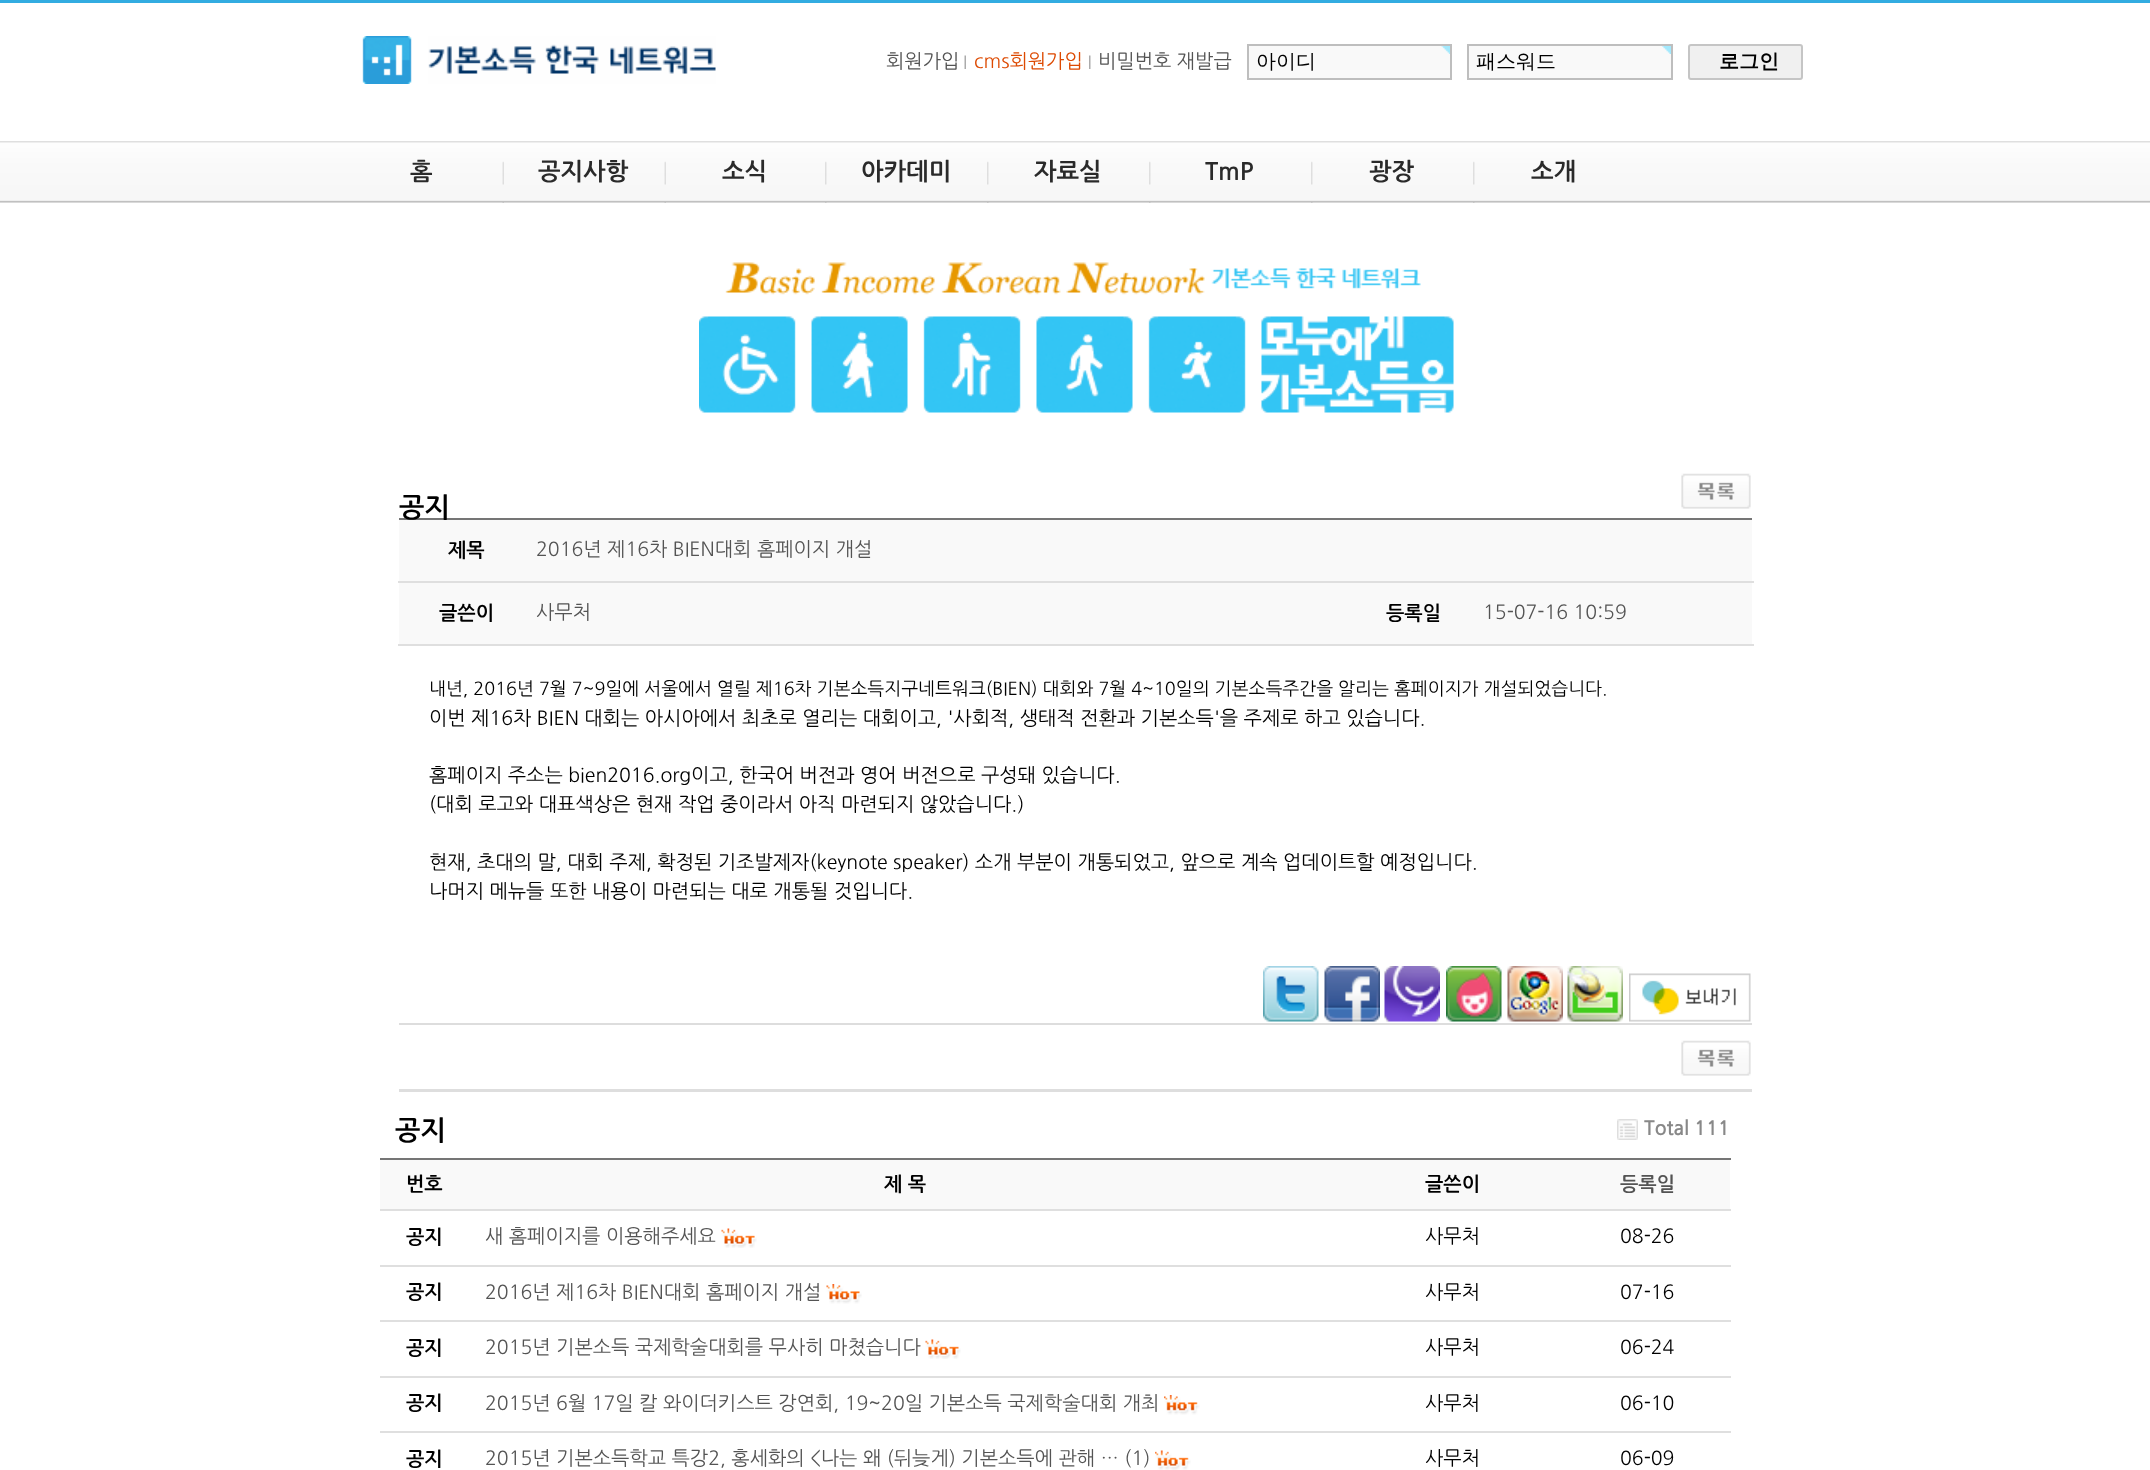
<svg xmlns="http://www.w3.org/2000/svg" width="2150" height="1470">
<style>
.a{font:19.5px NanumGothic;fill:#545454}
.b{font:19.5px NanumGothic;fill:#dd4a02}
.c{font:500 20px WenQuanYi Zen Hei;fill:#000}
.d{font:bold 20px WenQuanYi Zen Hei;fill:#000}
.e{font:bold 24px NanumGothic;fill:#2a2a2a}
.f{font:bold 27px NanumGothic;fill:#000}
.g{font:bold 19.5px 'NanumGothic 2';fill:#000}
.h{font:18px NanumGothic;fill:#000}
.i{font:19.5px NanumGothic;fill:#000}
.j{font:bold 19.5px 'NanumGothic 2';fill:#888}
.k{font:bold 19.5px 'NanumGothic 2';fill:#545454}
</style>
<rect width="100%" height="100%" fill="#fff"/>
<path fill="#32ace1" d="M0 0h2150v3H0z"/>
<image href="1.png" x="362" y="36" width="354" height="48"/>
<image href="2.png" x="964" y="55" width="2" height="14"/>
<image href="3.png" x="1089" y="55" width="2" height="14"/>
<path fill="#f9f9f9" d="M1249 46h201v32H1249z"/>
<image href="4.png" x="1441" y="46" width="9" height="8"/>
<path fill="none" stroke="#bebebe" stroke-width="2" d="M1248 45h203v34H1248z"/>
<path fill="#f9f9f9" d="M1469 46h202v32H1469z"/>
<image href="5.png" x="1662" y="46" width="9" height="8"/>
<path fill="none" stroke="#bebebe" stroke-width="2" d="M1468 45h204v34H1468z"/>
<rect fill="#f0f0f0" stroke="#c5c5c5" stroke-width="2" x="1689" y="45" width="113" height="34" rx="2"/>
<image href="6.png" x="0" y="141" width="2150" height="62"/>
<image href="7.png" x="502" y="161" width="2" height="42"/>
<image href="7.png" x="664" y="161" width="2" height="42"/>
<image href="8.png" x="825" y="161" width="2" height="42"/>
<image href="8.png" x="987" y="161" width="2" height="42"/>
<image href="8.png" x="1149" y="161" width="2" height="42"/>
<image href="8.png" x="1311" y="161" width="2" height="42"/>
<image href="8.png" x="1473" y="161" width="2" height="42"/>
<image href="9.png" x="699" y="262" width="755" height="151"/>
<image href="10.png" x="1681" y="473" width="70" height="36"/>
<path fill="#757575" d="M399 518h1353v2H399z"/>
<path fill="#f9f9f9" d="M399 520h1353v61H399z"/>
<path fill="#dfdfdf" d="M398 581h1356v2H398z"/>
<path fill="#f9f9f9" d="M399 583h1353v61H399z"/>
<path fill="#dfdfdf" d="M398 644h1356v2H398z"/>
<image href="11.png" x="1263" y="966" width="56" height="56"/>
<image href="12.png" x="1324" y="966" width="56" height="56"/>
<image href="13.png" x="1384" y="966" width="56" height="56"/>
<image href="14.png" x="1446" y="966" width="56" height="56"/>
<image href="15.png" x="1507" y="966" width="56" height="56"/>
<image href="16.png" x="1567" y="966" width="56" height="56"/>
<image href="17.png" x="1629" y="973" width="122" height="49"/>
<path fill="#ddd" d="M399 1023h1353v2H399z"/>
<image href="10.png" x="1681" y="1040" width="70" height="36"/>
<path fill="#dedede" d="M399 1089h1353v3H399z"/>
<image href="18.png" x="1617" y="1119" width="21" height="21"/>
<path fill="#f9f9f9" d="M380 1160h1350v49H380z"/>
<path fill="#757575" d="M380 1158h1351v2H380z"/>
<path fill="#dfdfdf" d="M380 1209h1351v2H380z"/>
<image href="19.png" x="721" y="1228" width="36" height="20"/>
<path fill="#dfdfdf" d="M380 1265h1351v2H380z"/>
<image href="20.png" x="826" y="1284" width="36" height="20"/>
<path fill="#dfdfdf" d="M380 1320h1351v2H380z"/>
<image href="21.png" x="925" y="1339" width="36" height="20"/>
<path fill="#dfdfdf" d="M380 1376h1351v2H380z"/>
<image href="22.png" x="1164" y="1395" width="36" height="20"/>
<path fill="#dfdfdf" d="M380 1431h1351v2H380z"/>
<image href="23.png" x="1155" y="1450" width="36" height="20"/>
<text class="a" x="886" y="68">회원가입</text>
<text class="b" x="974" y="68">cms회원가입</text>
<text class="a" x="1098" y="68">비밀번호 재발급</text>
<text class="c" x="1256" y="68">아이디</text>
<text class="c" x="1476" y="68">패스워드</text>
<text class="d" x="1719" y="68">로그인</text>
<text class="e" x="410" y="180">홈</text>
<text class="e" x="538" y="180">공지사항</text>
<text class="e" x="722" y="180">소식</text>
<text class="e" x="861" y="180">아카데미</text>
<text class="e" x="1034" y="180">자료실</text>
<text class="e" x="1205" y="180">TmP</text>
<text class="e" x="1369" y="180">광장</text>
<text class="e" x="1531" y="180">소개</text>
<text class="f" x="399" y="517">공지</text>
<text class="g" x="448" y="557">제목</text>
<text class="a" x="536" y="556">2016년 제16차 BIEN대회 홈페이지 개설</text>
<text class="g" x="439" y="620">글쓴이</text>
<text class="a" x="536" y="619">사무처</text>
<text class="g" x="1386" y="620">등록일</text>
<text class="a" x="1483" y="619">15-07-16 10:59</text>
<text class="h" x="429" y="695">내년, 2016년 7월 7~9일에 서울에서 열릴 제16차 기본소득지구네트워크(BIEN) 대회와 7월 4~10일의 기본소득주간을 알리는 홈페이지가 개설되었습니다.</text>
<text class="i" x="429" y="725">이번 제16차 BIEN 대회는 아시아에서 최초로 열리는 대회이고, '사회적, 생태적 전환과 기본소득'을 주제로 하고 있습니다.</text>
<text class="i" x="429" y="782">홈페이지 주소는 bien2016.org이고, 한국어 버전과 영어 버전으로 구성돼 있습니다.</text>
<text class="i" x="429" y="811">(대회 로고와 대표색상은 현재 작업 중이라서 아직 마련되지 않았습니다.)</text>
<text class="i" x="429" y="869">현재, 초대의 말, 대회 주제, 확정된 기조발제자(keynote speaker) 소개 부분이 개통되었고, 앞으로 계속 업데이트할 예정입니다.</text>
<text class="i" x="429" y="898">나머지 메뉴들 또한 내용이 마련되는 대로 개통될 것입니다.</text>
<text class="f" x="395" y="1140">공지</text>
<text class="j" x="1644" y="1135">Total 111</text>
<text class="g" x="406" y="1191">번호</text>
<text class="g" x="884" y="1191">제 목</text>
<text class="g" x="1425" y="1191">글쓴이</text>
<text class="k" x="1620" y="1191">등록일</text>
<text class="g" x="406" y="1244">공지</text>
<text class="a" x="485" y="1243">새 홈페이지를 이용해주세요</text>
<text class="i" x="1425" y="1243">사무처</text>
<text class="i" x="1620" y="1243">08-26</text>
<text class="g" x="406" y="1299">공지</text>
<text class="a" x="485" y="1299">2016년 제16차 BIEN대회 홈페이지 개설</text>
<text class="i" x="1425" y="1299">사무처</text>
<text class="i" x="1620" y="1299">07-16</text>
<text class="g" x="406" y="1355">공지</text>
<text class="a" x="485" y="1354">2015년 기본소득 국제학술대회를 무사히 마쳤습니다</text>
<text class="i" x="1425" y="1354">사무처</text>
<text class="i" x="1620" y="1354">06-24</text>
<text class="g" x="406" y="1410">공지</text>
<text class="a" x="485" y="1410">2015년 6월 17일 칼 와이더키스트 강연회, 19~20일 기본소득 국제학술대회 개최</text>
<text class="i" x="1425" y="1410">사무처</text>
<text class="i" x="1620" y="1410">06-10</text>
<text class="g" x="406" y="1466">공지</text>
<text class="a" x="485" y="1465">2015년 기본소득학교 특강2, 홍세화의 &lt;나는 왜 (뒤늦게) 기본소득에 관해 … (1)</text>
<text class="i" x="1425" y="1465">사무처</text>
<text class="i" x="1620" y="1465">06-09</text>
</svg>
